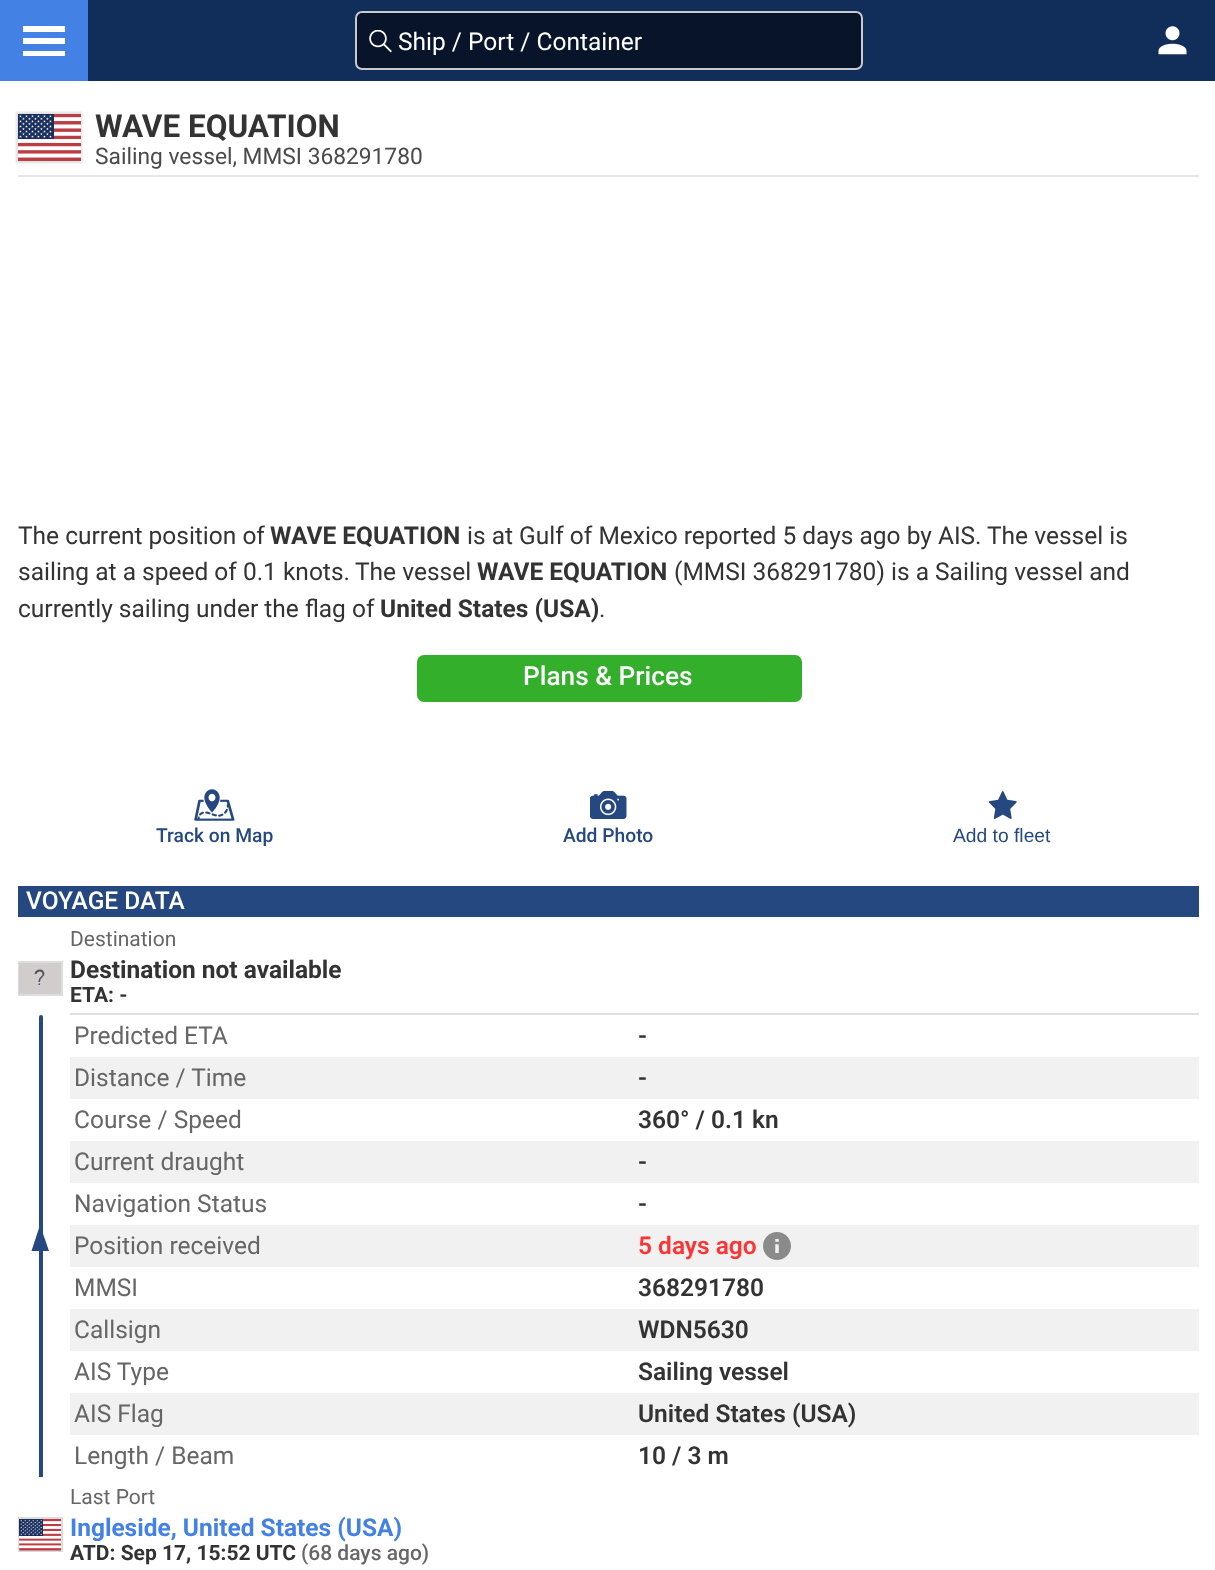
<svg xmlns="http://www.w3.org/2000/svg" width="1215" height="1570">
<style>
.a{font:24.5px Roboto;fill:#fff}
.b{font:bold 31.5px Roboto;fill:#333}
.c{font:22.75px Roboto;fill:#4a4a4a}
.d{font:24.5px Roboto;fill:#333}
.e{font:bold 24.5px Roboto;fill:#333}
.f{font:500 26.25px Roboto;fill:#fff}
.g{font:500 19.25px Roboto;fill:#254881}
.h{font:19.25px Liberation Sans;fill:#254881}
.i{font:500 24.5px Roboto;fill:#fff}
.j{font:21px Roboto;fill:#666}
.k{font:bold 21px Roboto;fill:#333}
.l{font:24.5px Roboto;fill:#666}
.m{font:600 24.5px Roboto;fill:#333}
.n{font:600 24.5px Roboto;fill:#f33}
.o{font:bold 24.5px Roboto;fill:#4481e4}
.p{font:500 21px Roboto;fill:#666}
</style>
<rect width="100%" height="100%" fill="#fff"/>
<path fill="#112d5a" d="M88 0h1127v81H88z"/>
<path fill="#4481e4" d="M0 0h88v81H0z"/>
<path fill="#fff" fill-rule="evenodd" d="M23 26h42v6h-42zm0 12h42v6h-42zm0 13h42v5h-42z"/>
<rect fill="#081429" stroke="#c9c9ce" stroke-width="2" x="356" y="12" width="506" height="57" rx="6"/>
<image href="1.png" x="369" y="30" width="23" height="23"/>
<image href="2.png" x="1158" y="26" width="29" height="29"/>
<path fill="#e6e6e6" d="M18 175h1181v2H18z"/>
<path fill="#ddd" filter="blur(1px)" d="M16 112h66v51H16z"/>
<image href="3.png" x="18" y="114" width="63" height="47"/>
<rect fill="#33af2c" x="417" y="655" width="385" height="47" rx="7"/>
<image href="4.png" x="194" y="789" width="41" height="32"/>
<image href="5.png" x="590" y="791" width="37" height="28"/>
<image href="6.png" x="989" y="791" width="28" height="28"/>
<path fill="#254881" d="M18 886h1181v31H18z"/>
<path fill="none" stroke="#ddd" stroke-width="2" d="M19 962h43v33H19z"/>
<path fill="#d2cdcd" d="M19 963h42v31H19z"/>
<path fill="#4f5459" d="M38.5 982c0-5.5 4-5 4-8c0-3.5-5.5-3.5-6 0h-2c.5-3 2.5-4.5 5.5-4.5c1.5 0 3 .5 3.5 2c.5 .5 1 1.5 1 2.5c-.5 2.5-2.5 3-4 5.5l-.5 2.5zm0 3v-1.5h1.5v1.5z"/>
<path fill="#e0e0e0" d="M70 1013h1129v2H70z"/>
<rect fill="#254881" x="39" y="1015" width="4" height="462" rx="2"/>
<path fill="#254881" d="M49 1251h-17.5l8.5-26z"/>
<path fill="#254881" d="M39 1475h4v2H39z"/>
<path fill="#f1f1f1" d="M70 1057h1129v42H70z"/>
<path fill="#f1f1f1" d="M70 1141h1129v42H70z"/>
<path fill="#f1f1f1" d="M70 1225h1129v42H70z"/>
<image href="7.png" x="763" y="1232" width="28" height="28"/>
<path fill="#f1f1f1" d="M70 1309h1129v42H70z"/>
<path fill="#f1f1f1" d="M70 1393h1129v42H70z"/>
<path fill="none" stroke="#ddd" stroke-width="2" d="M19 1518h43v33H19z"/>
<image href="8.png" x="19" y="1519" width="42" height="32"/>
<text class="a" x="398" y="50">Ship / Port / Container</text>
<text class="b" x="95" y="137">WAVE EQUATION</text>
<text class="c" x="95" y="164">Sailing vessel, MMSI 368291780</text>
<text class="d" x="18" y="544">The current position of</text>
<text class="e" x="270" y="544">WAVE EQUATION</text>
<text class="d" x="467" y="544">is at Gulf of Mexico reported 5 days ago by AIS.</text>
<text class="d" x="987" y="544">The vessel is</text>
<text class="d" x="18" y="580">sailing at a speed of 0.1 knots.</text>
<text class="d" x="355" y="580">The vessel</text>
<text class="e" x="477" y="580">WAVE EQUATION</text>
<text class="d" x="674" y="580">(MMSI 368291780) is a Sailing vessel and</text>
<text class="d" x="18" y="617">currently sailing under the flag of</text>
<text class="e" x="380" y="617">United States (USA)</text>
<text class="d" x="599" y="617">.</text>
<text class="f" x="523" y="685">Plans &amp; Prices</text>
<text class="g" x="156" y="842">Track on Map</text>
<text class="g" x="563" y="842">Add Photo</text>
<text class="h" x="953" y="842">Add to fleet</text>
<text class="i" x="26" y="909">VOYAGE DATA</text>
<text class="j" x="70" y="946">Destination</text>
<text class="e" x="70" y="978">Destination not available</text>
<text class="k" x="70" y="1002">ETA: -</text>
<text class="l" x="74" y="1044">Predicted ETA</text>
<text class="m" x="638" y="1044">-</text>
<text class="l" x="74" y="1086">Distance / Time</text>
<text class="m" x="638" y="1086">-</text>
<text class="l" x="74" y="1128">Course / Speed</text>
<text class="m" x="638" y="1128">360° / 0.1 kn</text>
<text class="l" x="74" y="1170">Current draught</text>
<text class="m" x="638" y="1170">-</text>
<text class="l" x="74" y="1212">Navigation Status</text>
<text class="m" x="638" y="1212">-</text>
<text class="l" x="74" y="1254">Position received</text>
<text class="n" x="638" y="1254">5 days ago</text>
<text class="l" x="74" y="1296">MMSI</text>
<text class="m" x="638" y="1296">368291780</text>
<text class="l" x="74" y="1338">Callsign</text>
<text class="m" x="638" y="1338">WDN5630</text>
<text class="l" x="74" y="1380">AIS Type</text>
<text class="m" x="638" y="1380">Sailing vessel</text>
<text class="l" x="74" y="1422">AIS Flag</text>
<text class="m" x="638" y="1422">United States (USA)</text>
<text class="l" x="74" y="1464">Length / Beam</text>
<text class="m" x="638" y="1464">10 / 3 m</text>
<text class="j" x="70" y="1504">Last Port</text>
<text class="o" x="70" y="1536">Ingleside, United States (USA)</text>
<text class="k" x="70" y="1560">ATD: Sep 17, 15:52 UTC</text>
<text class="p" x="301" y="1560">(68 days ago)</text>
</svg>
